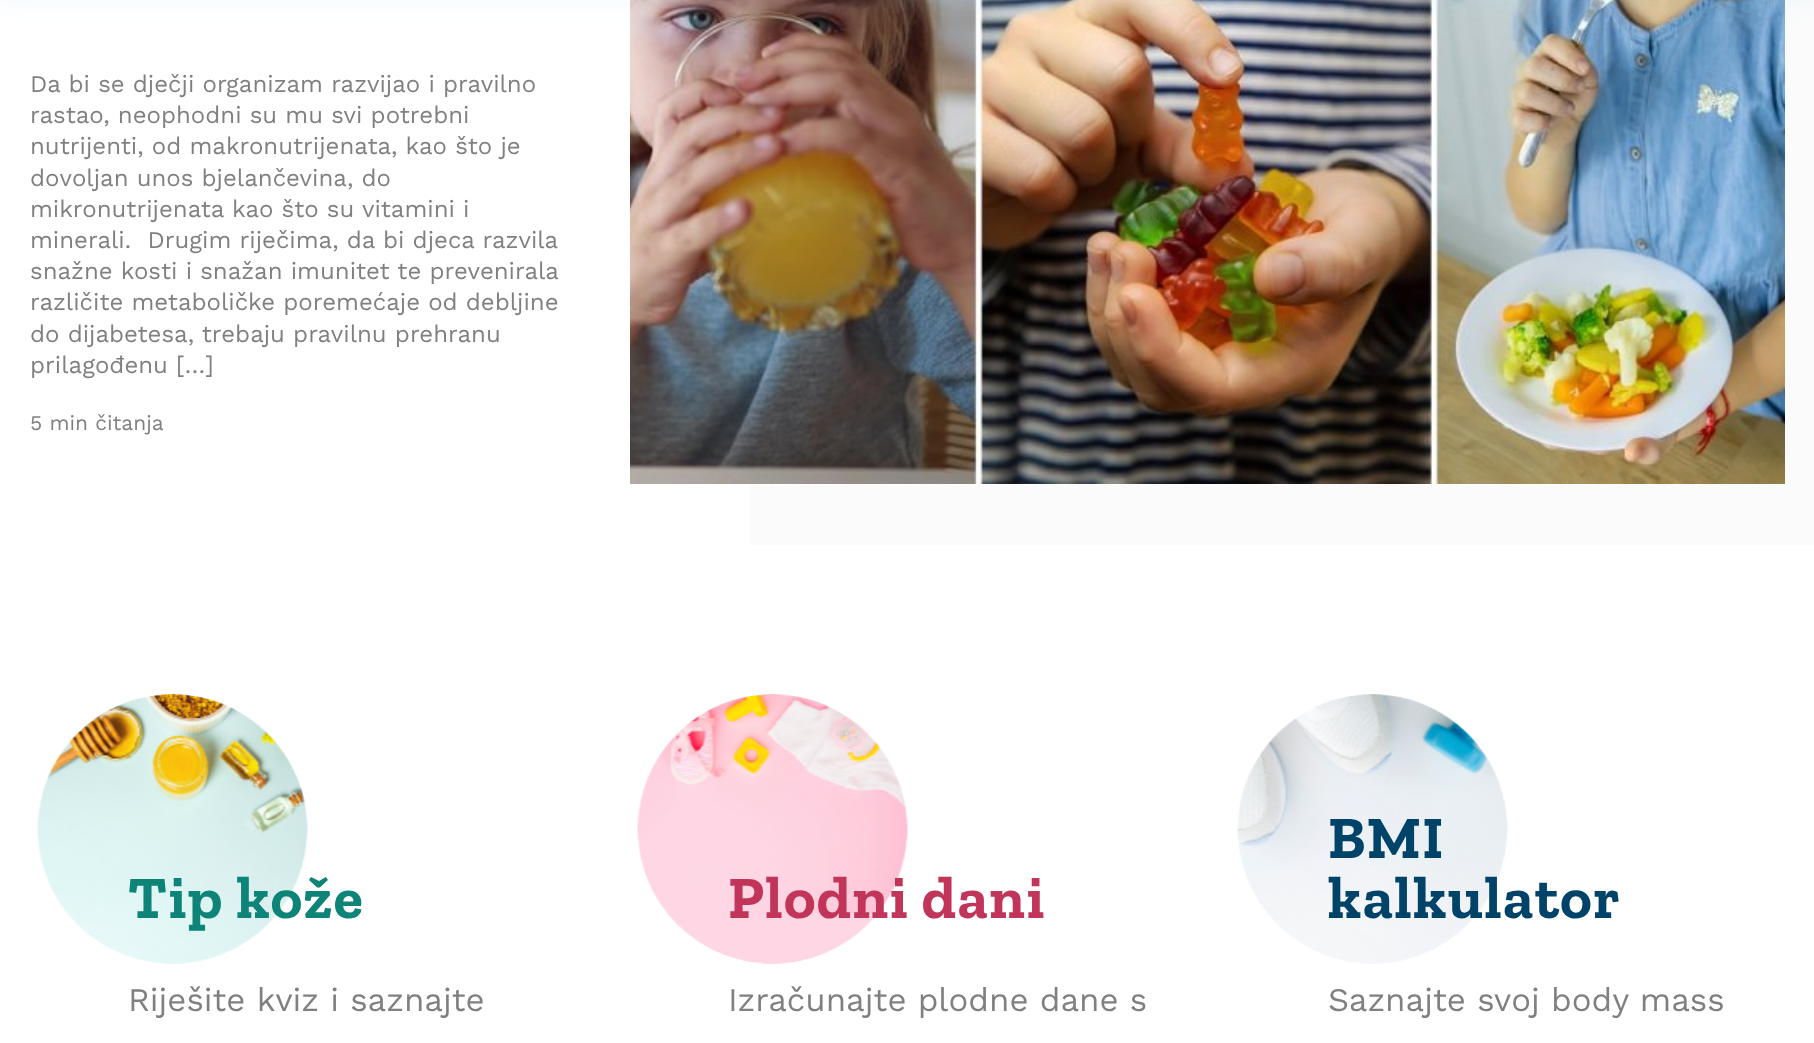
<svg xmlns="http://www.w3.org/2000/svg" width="1814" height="1043">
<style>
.a{font:24px Work Sans;fill:#808080}
.b{font:21px Work Sans;fill:#808080}
.c{font:bold 60px Zilla Slab;letter-spacing:1.5px;fill:#0d8477}
.d{font:33px Work Sans;fill:#808080}
.e{font:bold 60px Zilla Slab;letter-spacing:1.5px;fill:#c2355a}
.f{font:bold 60px Zilla Slab;letter-spacing:1.5px;fill:#004369}
</style>
<rect width="100%" height="100%" fill="#fbfbfb"/>
<path fill="#fff" d="M0 0h750v545H0z"/>
<image href="1.png" x="630" y="0" width="1155" height="484"/>
<path fill="#9cd7fc26" filter="blur(15px)" d="M0 -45h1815v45H0z"/>
<path fill="#fff" d="M750 484h1035v1H750z"/>
<path fill="#fff" d="M0 545h1814v498H0z"/>
<image href="2.png" x="37" y="694" width="271" height="270"/>
<image href="3.png" x="637" y="694" width="271" height="270"/>
<image href="4.png" x="1237" y="694" width="271" height="270"/>
<text class="a" x="30" y="92">Da bi se dječji organizam razvijao i pravilno</text>
<text class="a" x="30" y="123">rastao, neophodni su mu svi potrebni</text>
<text class="a" x="30" y="154">nutrijenti, od makronutrijenata, kao što je</text>
<text class="a" x="30" y="186">dovoljan unos bjelančevina, do</text>
<text class="a" x="30" y="217">mikronutrijenata kao što su vitamini i</text>
<text class="a" xml:space="preserve" x="30" y="248">minerali.  Drugim riječima, da bi djeca razvila</text>
<text class="a" x="30" y="279">snažne kosti i snažan imunitet te prevenirala</text>
<text class="a" x="30" y="310">različite metaboličke poremećaje od debljine</text>
<text class="a" x="30" y="342">do dijabetesa, trebaju pravilnu prehranu</text>
<text class="a" x="30" y="373">prilagođenu […]</text>
<text class="b" x="30" y="430">5 min čitanja</text>
<text class="c" x="128" y="918">Tip kože</text>
<text class="d" x="128" y="1011">Riješite kviz i saznajte</text>
<text class="e" x="728" y="918">Plodni dani</text>
<text class="d" x="728" y="1011">Izračunajte plodne dane s</text>
<text class="f" x="1328" y="858">BMI</text>
<text class="f" x="1328" y="918">kalkulator</text>
<text class="d" x="1328" y="1011">Saznajte svoj body mass</text>
</svg>
